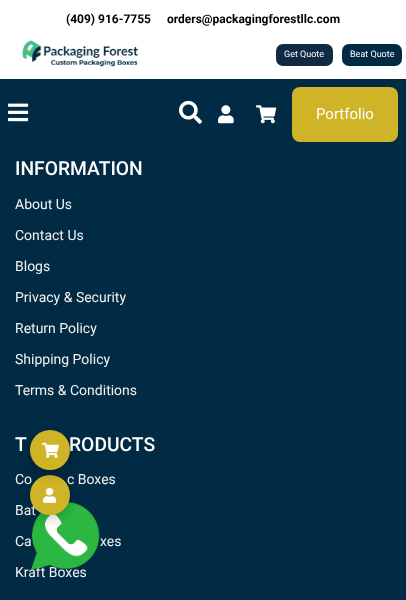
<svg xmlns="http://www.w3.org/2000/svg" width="406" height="600">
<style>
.a{font:bold 12px Roboto;fill:#000}
.b{font:9px Roboto;fill:#fff}
.c{font:15px Roboto;fill:#fff}
.d{font:500 19.25px Roboto;fill:#fff}
.e{font:14px Roboto;fill:#f2f2f2}
</style>
<rect width="100%" height="100%" fill="#012a44"/>
<path fill="#fff" d="M0 0h406v79H0z"/>
<image href="1.png" x="22" y="40" width="116" height="27"/>
<rect fill="#102944" x="276" y="44" width="57" height="22" rx="7"/>
<rect fill="#012a44" x="342" y="44" width="60" height="22" rx="7"/>
<image href="2.png" x="8" y="103" width="21" height="19"/>
<image href="3.png" x="179" y="100" width="23" height="24"/>
<image href="4.png" x="218" y="105" width="16" height="19"/>
<image href="5.png" x="256" y="105" width="21" height="19"/>
<rect fill="#cfb428" x="292" y="87" width="106" height="55" rx="8"/>
<text class="a" x="66" y="23">(409) 916-7755</text>
<text class="a" x="167" y="23">orders@packagingforestllc.com</text>
<text class="b" x="284" y="57">Get Quote</text>
<text class="b" x="350" y="57">Beat Quote</text>
<text class="c" x="316" y="119">Portfolio</text>
<text class="d" x="15" y="175">INFORMATION</text>
<text class="e" x="15" y="209">About Us</text>
<text class="e" x="15" y="240">Contact Us</text>
<text class="e" x="15" y="271">Blogs</text>
<text class="e" x="15" y="302">Privacy &amp; Security</text>
<text class="e" x="15" y="333">Return Policy</text>
<text class="e" x="15" y="364">Shipping Policy</text>
<text class="e" x="15" y="395">Terms &amp; Conditions</text>
<text class="d" x="15" y="451">T</text>
<text class="d" x="69" y="451">RODUCTS</text>
<text class="e" x="15" y="484">Co</text>
<text class="e" x="67" y="484">c Boxes</text>
<text class="e" x="15" y="515">Bat</text>
<text class="e" x="15" y="546">Ca</text>
<text class="e" x="100" y="546">xes</text>
<text class="e" x="15" y="577">Kraft Boxes</text>
<image href="8.png" x="31" y="501" width="69" height="69"/>
<rect fill="#00000033" filter="blur(6px)" x="30" y="479" width="40" height="40" rx="20"/>
<circle fill="#cfb428" cx="50" cy="495" r="20"/>
<image href="7.png" x="43" y="487" width="14" height="16"/>
<rect fill="#00000033" filter="blur(6px)" x="30" y="434" width="40" height="40" rx="20"/>
<circle fill="#cfb428" cx="50" cy="450" r="20"/>
<image href="6.png" x="42" y="442" width="17" height="16"/>
</svg>
